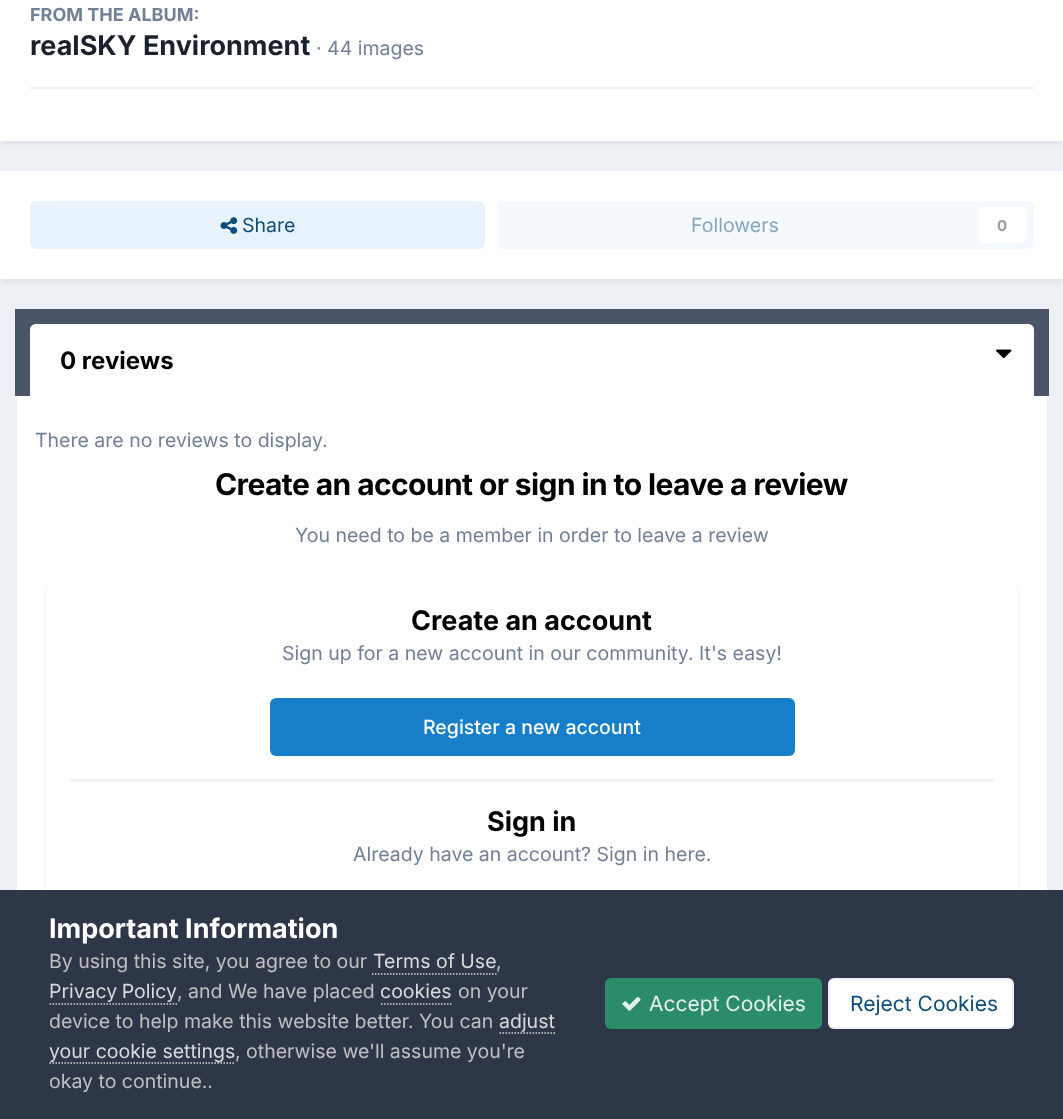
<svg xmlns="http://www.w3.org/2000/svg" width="1063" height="1119">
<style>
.a{font:bold 18px Inter;fill:#718096}
.b{font:bold 27px Inter;fill:#1a202c}
.c{font:19.5px Inter;fill:#718096}
.d{font:19.5px Inter;fill:#0e4c79}
.e{font:19.5px Inter;fill:#87a6bc}
.f{font:bold 15px Inter;fill:#9a9ea0}
.g{font:bold 24px Inter;fill:#000}
.h{font:bold 30px Inter;letter-spacing:-0.6px;fill:#000}
.i{font:bold 27px Inter;fill:#000}
.j{font:500 19.5px Inter;fill:#fff}
.k{font:bold 27px Inter;fill:#fff}
.l{font:19.5px Inter;fill:#c0c0c0}
.m{font:19.5px Inter;fill:#dadada}
.n{font:21px Inter;fill:#e3f3ec}
.o{font:21px Inter;fill:#0e4c79}
</style>
<rect width="100%" height="100%" fill="#edf0f4"/>
<path fill="#2d37481a" filter="blur(3px)" d="M2 -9h1060v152H2z"/>
<path fill="#fff" d="M0 0h1063v141H0z"/>
<path fill="#efeff0" d="M30 87h1004v2H30z"/>
<path fill="#2d37481a" filter="blur(3px)" d="M2 176h1060v105H2z"/>
<path fill="#fff" d="M0 171h1063v108H0z"/>
<rect fill="#e8f2fa" x="30" y="201" width="455" height="48" rx="6"/>
<image href="1.png" x="220" y="217" width="18" height="17"/>
<rect fill="#f4f9fd" x="497" y="201" width="537" height="48" rx="6"/>
<rect fill="#fff" x="978" y="207" width="48" height="36" rx="6"/>
<path fill="#4a5568" d="M15 309h1034v87H15z"/>
<path fill="#fff" d="M36 324h992c3.5 0 6 2.5 6 6v66h-1004v-66c0-3.5 2.5-6 6-6z"/>
<image href="2.png" x="996" y="349" width="16" height="10"/>
<path fill="#fff" d="M17 396h1030v494H17z"/>
<path fill="#edf2f7" d="M1047 396h2v494H1047z"/>
<path fill="#edf2f7" d="M15 396h2v494H15z"/>
<rect fill="#2d37481a" filter="blur(3px)" x="48" y="585" width="968" height="396" rx="5"/>
<rect fill="#fff" x="47" y="581" width="970" height="399" rx="6"/>
<path fill="#f2f2f2" d="M69 779h926v3H69z"/>
<rect fill="#177ec9" x="270" y="698" width="525" height="58" rx="6"/>
<path fill="#2d3748" d="M0 890h1063v229H0z"/>
<path fill="none" stroke="#dadada" stroke-width="1.5" stroke-dasharray="1.5 1.5" d="M372 974h124.5"/>
<path fill="none" stroke="#dadada" stroke-width="1.5" stroke-dasharray="1.5 1.5" d="M49.5 1004h127.5"/>
<path fill="none" stroke="#dadada" stroke-width="1.5" stroke-dasharray="1.5 1.5" d="M381 1004h70.5"/>
<path fill="none" stroke="#dadada" stroke-width="1.5" stroke-dasharray="1.5 1.5" d="M499.5 1033h55.5"/>
<path fill="none" stroke="#dadada" stroke-width="1.5" stroke-dasharray="1.5 1.5" d="M49.5 1063h186"/>
<rect fill="#2c8c69" x="605" y="978" width="217" height="51" rx="6"/>
<image href="3.png" x="622" y="996" width="19" height="15"/>
<rect fill="#fff" x="828" y="978" width="186" height="51" rx="6"/>
<rect fill="none" stroke="#0e4c7912" stroke-width="2" x="829" y="979" width="184" height="49" rx="5"/>
<text class="a" x="30" y="21">FROM THE ALBUM:</text>
<text class="b" x="30" y="55">realSKY Environment</text>
<text class="c" x="316" y="55">· 44 images</text>
<text class="d" x="242" y="232">Share</text>
<text class="e" x="691" y="232">Followers</text>
<text class="f" x="997" y="231">0</text>
<text class="g" x="60" y="369">0 reviews</text>
<text class="c" x="35" y="447">There are no reviews to display.</text>
<text class="h" x="215" y="495">Create an account or sign in to leave a review</text>
<text class="c" x="295" y="542">You need to be a member in order to leave a review</text>
<text class="i" x="411" y="630">Create an account</text>
<text class="c" x="282" y="660">Sign up for a new account in our community. It's easy!</text>
<text class="j" x="423" y="734">Register a new account</text>
<text class="i" x="487" y="831">Sign in</text>
<text class="c" x="353" y="861">Already have an account? Sign in here.</text>
<text class="k" x="49" y="938">Important Information</text>
<text class="l" x="49" y="968">By using this site, you agree to our</text>
<text class="m" x="373" y="968">Terms of Use</text>
<text class="l" x="496" y="968">,</text>
<text class="m" x="49" y="998" word-spacing="-1">Privacy Policy</text>
<text class="l" x="177" y="998">, and We have placed</text>
<text class="m" x="380" y="998">cookies</text>
<text class="l" x="458" y="998">on your</text>
<text class="l" x="49" y="1028">device to help make this website better. You can</text>
<text class="m" x="499" y="1028">adjust</text>
<text class="m" x="49" y="1058">your cookie settings</text>
<text class="l" x="235" y="1058">, otherwise we'll assume you're</text>
<text class="l" x="49" y="1088">okay to continue..</text>
<text class="n" x="649" y="1011">Accept Cookies</text>
<text class="o" x="850" y="1011">Reject Cookies</text>
</svg>
